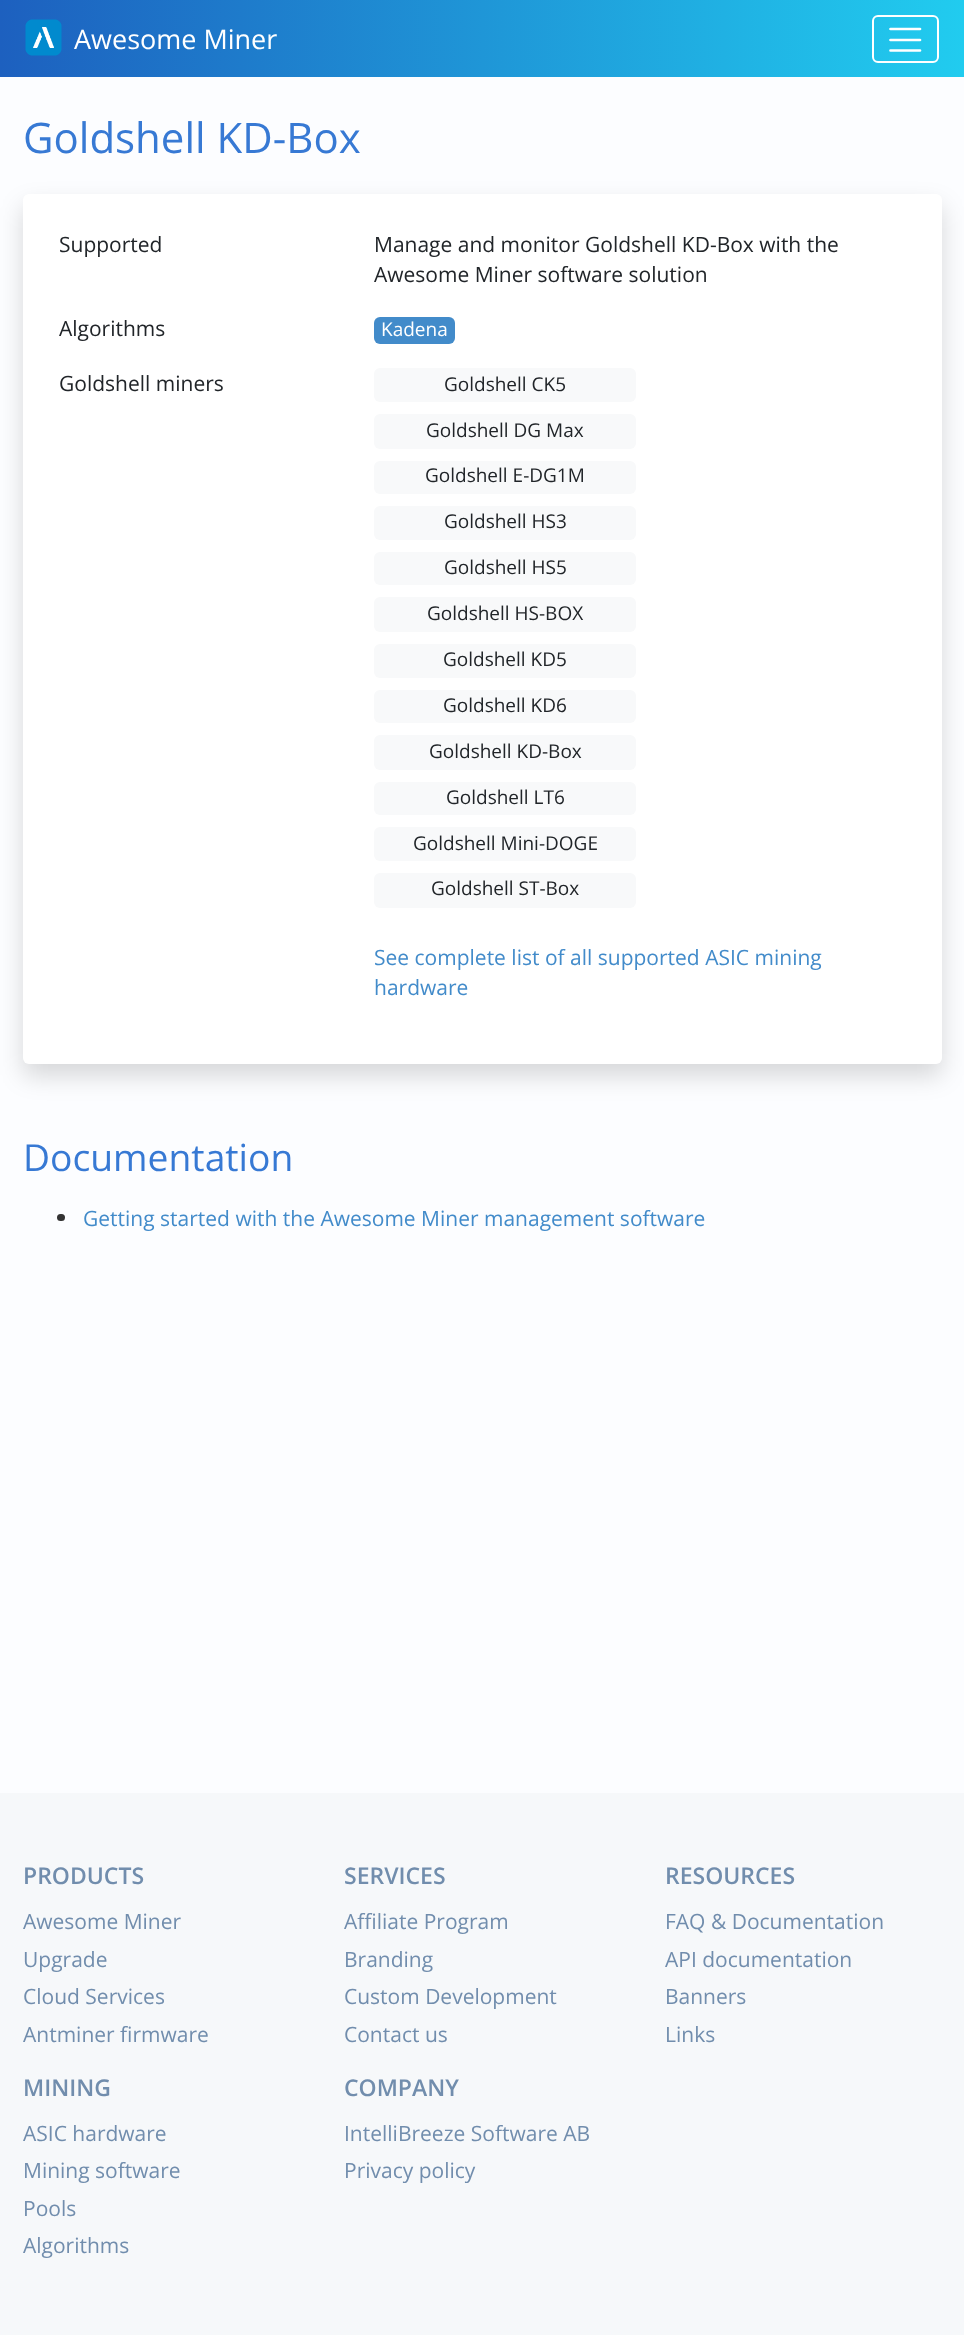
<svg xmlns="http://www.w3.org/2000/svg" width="964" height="2335">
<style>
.a{font:27px Open Sans;fill:#fff}
.b{font:42px Open Sans;fill:#3779d4}
.c{font:21px Open Sans;fill:#212529}
.d{font:19px Open Sans;fill:#fff}
.e{font:19px Open Sans;fill:#212529}
.f{font:21px Open Sans;fill:#428bca}
.g{font:37.25px Open Sans;fill:#3779d4}
.h{font:600 23px Open Sans;fill:#718dad}
.i{font:21px Open Sans;fill:#718dad}
</style>
<defs>
<linearGradient id="g1" gradientUnits="userSpaceOnUse" x1="0" y1="38" x2="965" y2="38"><stop offset="0" stop-color="#1d60bf"/><stop offset="1" stop-color="#21ccef"/></linearGradient>
</defs>
<rect width="100%" height="100%" fill="#fcfdff"/>
<path fill="url(#g1)" d="M0 0h964v77H0z"/>
<image href="1.png" x="25" y="19" width="37" height="37"/>
<rect fill="none" stroke="#fff" stroke-width="2" x="873" y="16" width="65" height="46" rx="5"/>
<path fill="none" stroke="#fff" stroke-width="2.7" stroke-linecap="round" d="M890.5 29h29.5m-29.5 11h29.5m-29.5 10.5h29.5"/>
<rect fill="#00000026" filter="blur(12px)" x="23" y="206" width="919" height="870" rx="6"/>
<rect fill="#fff" x="23" y="194" width="919" height="870" rx="6"/>
<rect fill="#428bca" x="374" y="317" width="81" height="27" rx="6"/>
<rect fill="#f8f9fa" x="374" y="368" width="262" height="34" rx="6"/>
<rect fill="#f8f9fa" x="374" y="414" width="262" height="35" rx="6"/>
<rect fill="#f8f9fa" x="374" y="461" width="262" height="33" rx="6"/>
<rect fill="#f8f9fa" x="374" y="506" width="262" height="34" rx="6"/>
<rect fill="#f8f9fa" x="374" y="552" width="262" height="33" rx="6"/>
<rect fill="#f8f9fa" x="374" y="597" width="262" height="35" rx="6"/>
<rect fill="#f8f9fa" x="374" y="644" width="262" height="34" rx="6"/>
<rect fill="#f8f9fa" x="374" y="690" width="262" height="33" rx="6"/>
<rect fill="#f8f9fa" x="374" y="735" width="262" height="35" rx="6"/>
<rect fill="#f8f9fa" x="374" y="782" width="262" height="33" rx="6"/>
<rect fill="#f8f9fa" x="374" y="827" width="262" height="34" rx="6"/>
<rect fill="#f8f9fa" x="374" y="873" width="262" height="35" rx="6"/>
<rect fill="#333" x="57" y="1214" width="8" height="7" rx="3.5"/>
<path fill="#f6f8fa" d="M0 1793h964v542H0z"/>
<text class="a" x="74" y="49">Awesome Miner</text>
<text class="b" x="23" y="153">Goldshell KD-Box</text>
<text class="c" x="59" y="252">Supported</text>
<text class="c" x="374" y="252">Manage and monitor Goldshell KD-Box with the</text>
<text class="c" x="374" y="282">Awesome Miner software solution</text>
<text class="c" x="59" y="336">Algorithms</text>
<text class="d" x="381" y="336">Kadena</text>
<text class="c" x="59" y="391">Goldshell miners</text>
<text class="e" x="444" y="391">Goldshell CK5</text>
<text class="e" x="426" y="437">Goldshell DG Max</text>
<text class="e" x="425" y="482">Goldshell E-DG1M</text>
<text class="e" x="444" y="528">Goldshell HS3</text>
<text class="e" x="444" y="574">Goldshell HS5</text>
<text class="e" x="427" y="620">Goldshell HS-BOX</text>
<text class="e" x="443" y="666">Goldshell KD5</text>
<text class="e" x="443" y="712">Goldshell KD6</text>
<text class="e" x="429" y="758">Goldshell KD-Box</text>
<text class="e" x="446" y="804">Goldshell LT6</text>
<text class="e" x="413" y="850">Goldshell Mini-DOGE</text>
<text class="e" x="431" y="895">Goldshell ST-Box</text>
<text class="f" x="374" y="965">See complete list of all supported ASIC mining</text>
<text class="f" x="374" y="995">hardware</text>
<text class="g" x="23" y="1171">Documentation</text>
<text class="f" x="83" y="1226">Getting started with the Awesome Miner management software</text>
<text class="h" x="23" y="1884">PRODUCTS</text>
<text class="i" x="23" y="1929">Awesome Miner</text>
<text class="i" x="23" y="1967">Upgrade</text>
<text class="i" x="23" y="2004">Cloud Services</text>
<text class="i" x="23" y="2042">Antminer firmware</text>
<text class="h" x="344" y="1884">SERVICES</text>
<text class="i" x="344" y="1929">Affiliate Program</text>
<text class="i" x="344" y="1967">Branding</text>
<text class="i" x="344" y="2004">Custom Development</text>
<text class="i" x="344" y="2042">Contact us</text>
<text class="h" x="665" y="1884">RESOURCES</text>
<text class="i" x="665" y="1929">FAQ &amp; Documentation</text>
<text class="i" x="665" y="1967">API documentation</text>
<text class="i" x="665" y="2004">Banners</text>
<text class="i" x="665" y="2042">Links</text>
<text class="h" x="23" y="2096">MINING</text>
<text class="i" x="23" y="2141">ASIC hardware</text>
<text class="i" x="23" y="2178">Mining software</text>
<text class="i" x="23" y="2216">Pools</text>
<text class="i" x="23" y="2253">Algorithms</text>
<text class="h" x="344" y="2096">COMPANY</text>
<text class="i" x="344" y="2141">IntelliBreeze Software AB</text>
<text class="i" x="344" y="2178">Privacy policy</text>
</svg>
